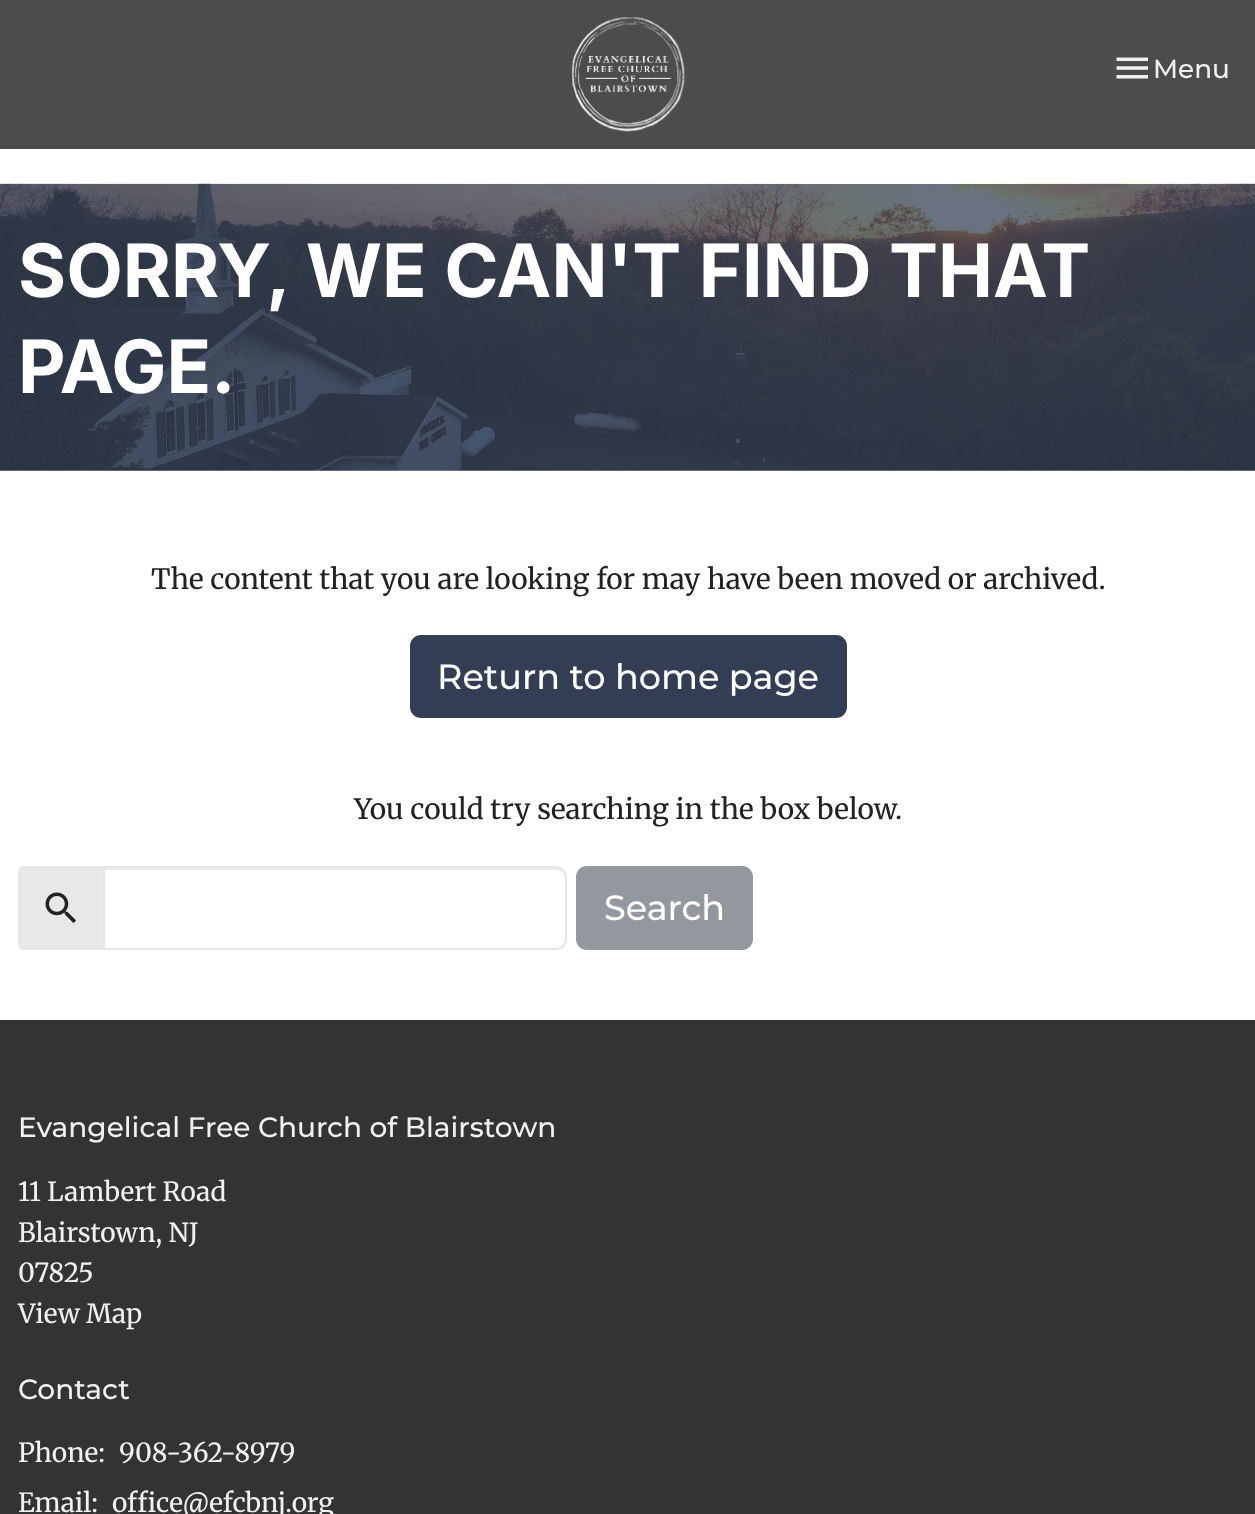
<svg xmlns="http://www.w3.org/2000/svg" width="1255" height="1514">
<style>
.a{font:500 26.25px Montserrat;fill:#f1f1f1}
.b{font:bold 73.5px Inter;fill:#fff}
.c{font:28px Merriweather;fill:#222}
.d{font:500 35px Montserrat;fill:#fff}
.e{font:500 28px Montserrat;fill:#f1f1f1}
.f{font:26.25px Merriweather;fill:#f1f1f1}
</style>
<rect width="100%" height="100%" fill="#fff"/>
<path fill="#4c4c4c" d="M0 0h1255v149H0z"/>
<image href="1.png" x="572" y="17" width="113" height="115"/>
<image href="2.png" x="1116" y="57" width="32" height="22"/>
<image href="3.png" x="0" y="183" width="1255" height="288"/>
<rect fill="#333e54" x="410" y="635" width="437" height="83" rx="11"/>
<path fill="#e8e8e8" d="M25 866h78v84h-78c-4 0-7-3-7-7v-70c0-4 3-7 7-7z"/>
<path fill="#e6e6e6" fill-rule="evenodd" d="M24 866h79v84h-79c-3 0-6-3-6-7v-70c0-4 3-7 6-7zm0 2h79v80h-79c-2 0-5-2-5-5v-70c0-3 3-5 5-5z"/>
<image href="4.png" x="45" y="892" width="31" height="31"/>
<path fill="#ececec" d="M105 870h451c5 0 9 4 9 8c0-5-3-10-9-10h-451z"/>
<path fill="none" stroke="#e6e6e6" stroke-width="2" d="M104 867h452c5.5 0 10 4.5 10 10v62c0 5.5-4.5 10-10 10h-452z"/>
<rect fill="#93979e" x="576" y="866" width="177" height="84" rx="11"/>
<path fill="#333" d="M0 1020h1255v494H0z"/>
<text class="a" x="1153" y="78">Menu</text>
<text class="b" x="18" y="297">SORRY, WE CAN'T FIND THAT</text>
<text class="b" x="18" y="393">PAGE.</text>
<text class="c" x="151" y="589">The content that you are looking for may have been moved or archived.</text>
<text class="d" x="437" y="689">Return to home page</text>
<text class="c" x="354" y="819">You could try searching in the box below.</text>
<text class="d" x="604" y="920">Search</text>
<text class="e" x="18" y="1137">Evangelical Free Church of Blairstown</text>
<text class="f" x="18" y="1201">11 Lambert Road</text>
<text class="f" x="18" y="1242">Blairstown, NJ</text>
<text class="f" x="18" y="1282">07825</text>
<text class="f" x="18" y="1323">View Map</text>
<text class="e" x="18" y="1399">Contact</text>
<text class="f" x="18" y="1462">Phone:</text>
<text class="f" x="119" y="1462">908-362-8979</text>
<text class="f" x="18" y="1512">Email:</text>
<text class="f" x="112" y="1512">office@efcbnj.org</text>
</svg>
